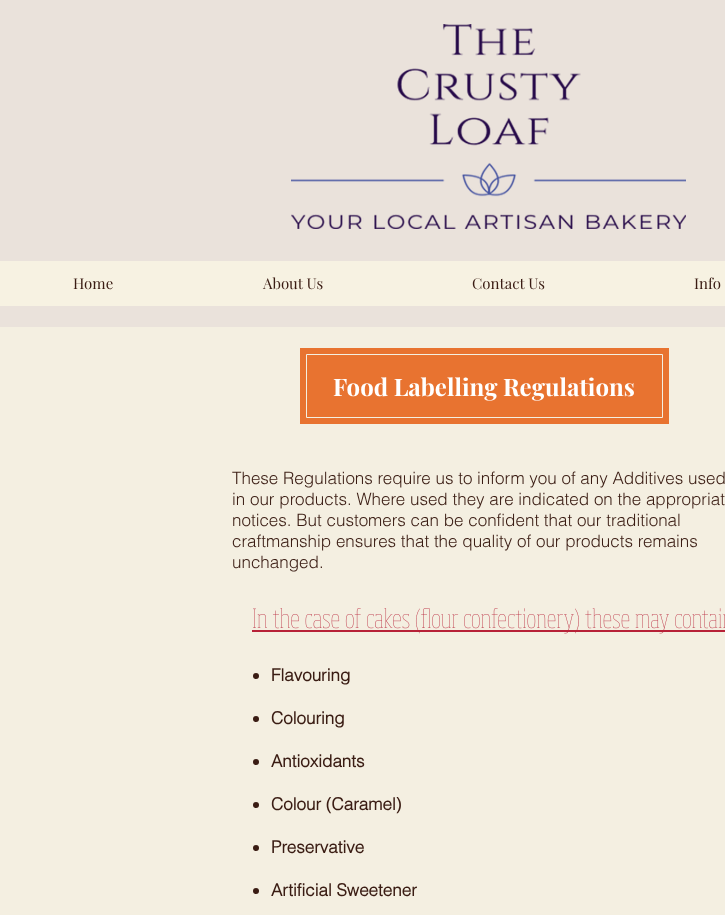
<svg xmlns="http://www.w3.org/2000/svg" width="725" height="915">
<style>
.a{font:15px Playfair Display;fill:#3a1c13}
.b{font:bold 24px Playfair Display;fill:#fff}
.c{font:300 17px helvetica;fill:#3a1c13}
.d{font:bold 17px helvetica;fill:#3a1c13}
</style>
<rect width="100%" height="100%" fill="#eae2db"/>
<image href="1.png" x="291" y="24" width="395" height="205"/>
<path fill="#f7f2e2" d="M0 261h725v45H0z"/>
<path fill="#f4efe1" d="M0 327h725v588H0z"/>
<path fill="#e87330" d="M300 348h369v76H300z"/>
<path fill="none" stroke="#f4efe1" d="M306.5 354.5h356v63H306.5z"/>
<path fill="#b72137" d="M252 630h473v2H252z"/>
<image href="2.png" x="253" y="608" width="472" height="26"/>
<circle fill="#3a1c13" cx="256" cy="676" r="3"/>
<circle fill="#3a1c13" cx="256" cy="719" r="3"/>
<circle fill="#3a1c13" cx="256" cy="762" r="3"/>
<circle fill="#3a1c13" cx="256" cy="805" r="3"/>
<circle fill="#3a1c13" cx="256" cy="848" r="3"/>
<circle fill="#3a1c13" cx="256" cy="891" r="3"/>
<text class="a" x="73" y="289">Home</text>
<text class="a" x="263" y="289">About Us</text>
<text class="a" x="472" y="289">Contact Us</text>
<text class="a" x="694" y="289">Info</text>
<text class="b" x="333" y="396">Food Labelling Regulations</text>
<text class="c" x="232" y="484">These Regulations require us to inform you of any Additives used</text>
<text class="c" x="232" y="505">in our products. Where used they are indicated on the appropriat</text>
<text class="c" x="232" y="526">notices. But customers can be confident that our traditional</text>
<text class="c" x="232" y="547">craftmanship ensures that the quality of our products remains</text>
<text class="c" x="232" y="568">unchanged.</text>
<text class="d" x="271" y="681">Flavouring</text>
<text class="d" x="271" y="724">Colouring</text>
<text class="d" x="271" y="767">Antioxidants</text>
<text class="d" x="271" y="810">Colour (Caramel)</text>
<text class="d" x="271" y="853">Preservative</text>
<text class="d" x="271" y="896">Artificial Sweetener</text>
</svg>
